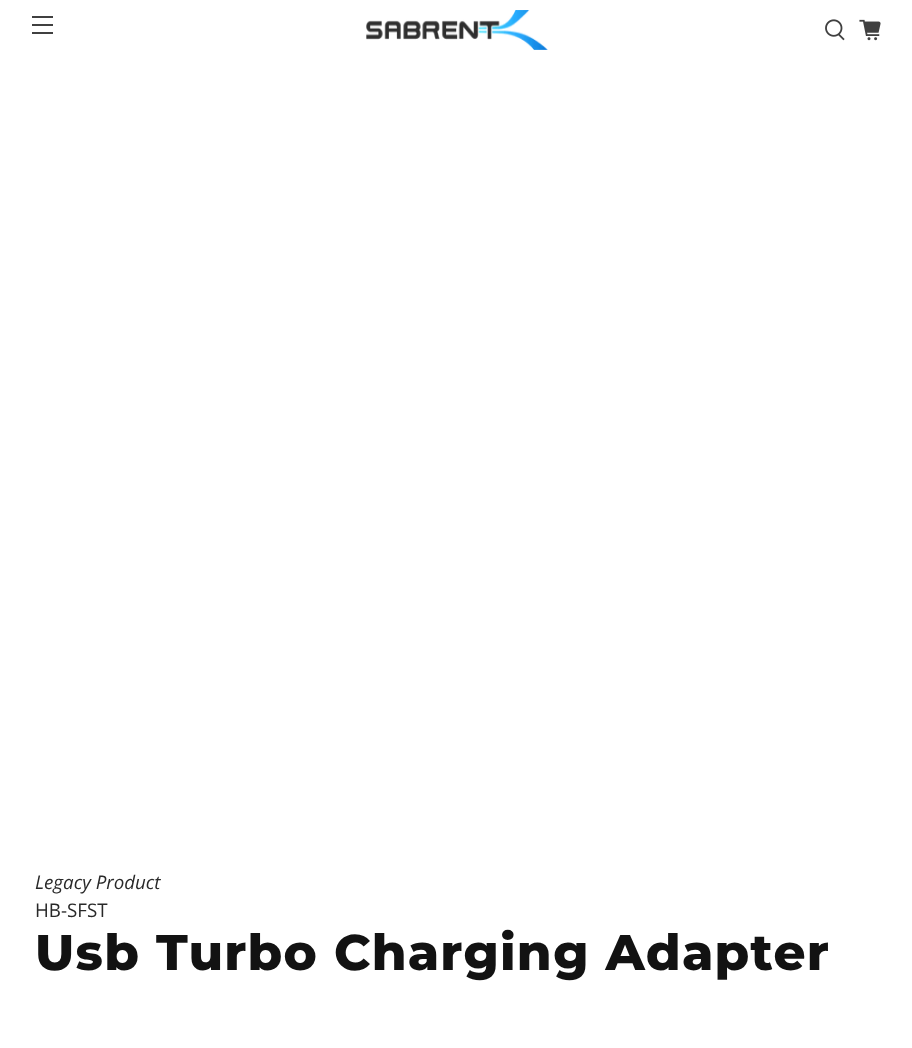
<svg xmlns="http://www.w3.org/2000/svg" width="912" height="1048">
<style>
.a{font:italic 18.75px Open Sans;fill:#292929}
.b{font:18.75px Open Sans;fill:#292929}
.c{font:800 50px Montserrat;letter-spacing:1.25px;fill:#121212}
</style>
<rect width="100%" height="100%" fill="#fff"/>
<path fill="#404040" d="M32 16h21v2H32z"/>
<path fill="#404040" d="M32 24h21v2H32z"/>
<path fill="#404040" d="M32 32h21v2H32z"/>
<image href="1.png" x="366" y="10" width="182" height="40"/>
<image href="2.png" x="825" y="19" width="20" height="22"/>
<image href="3.png" x="859" y="19" width="22" height="22"/>
<text class="a" x="35" y="889">Legacy Product</text>
<text class="b" x="35" y="917">HB-SFST</text>
<text class="c" x="35" y="970">Usb Turbo Charging Adapter</text>
</svg>
